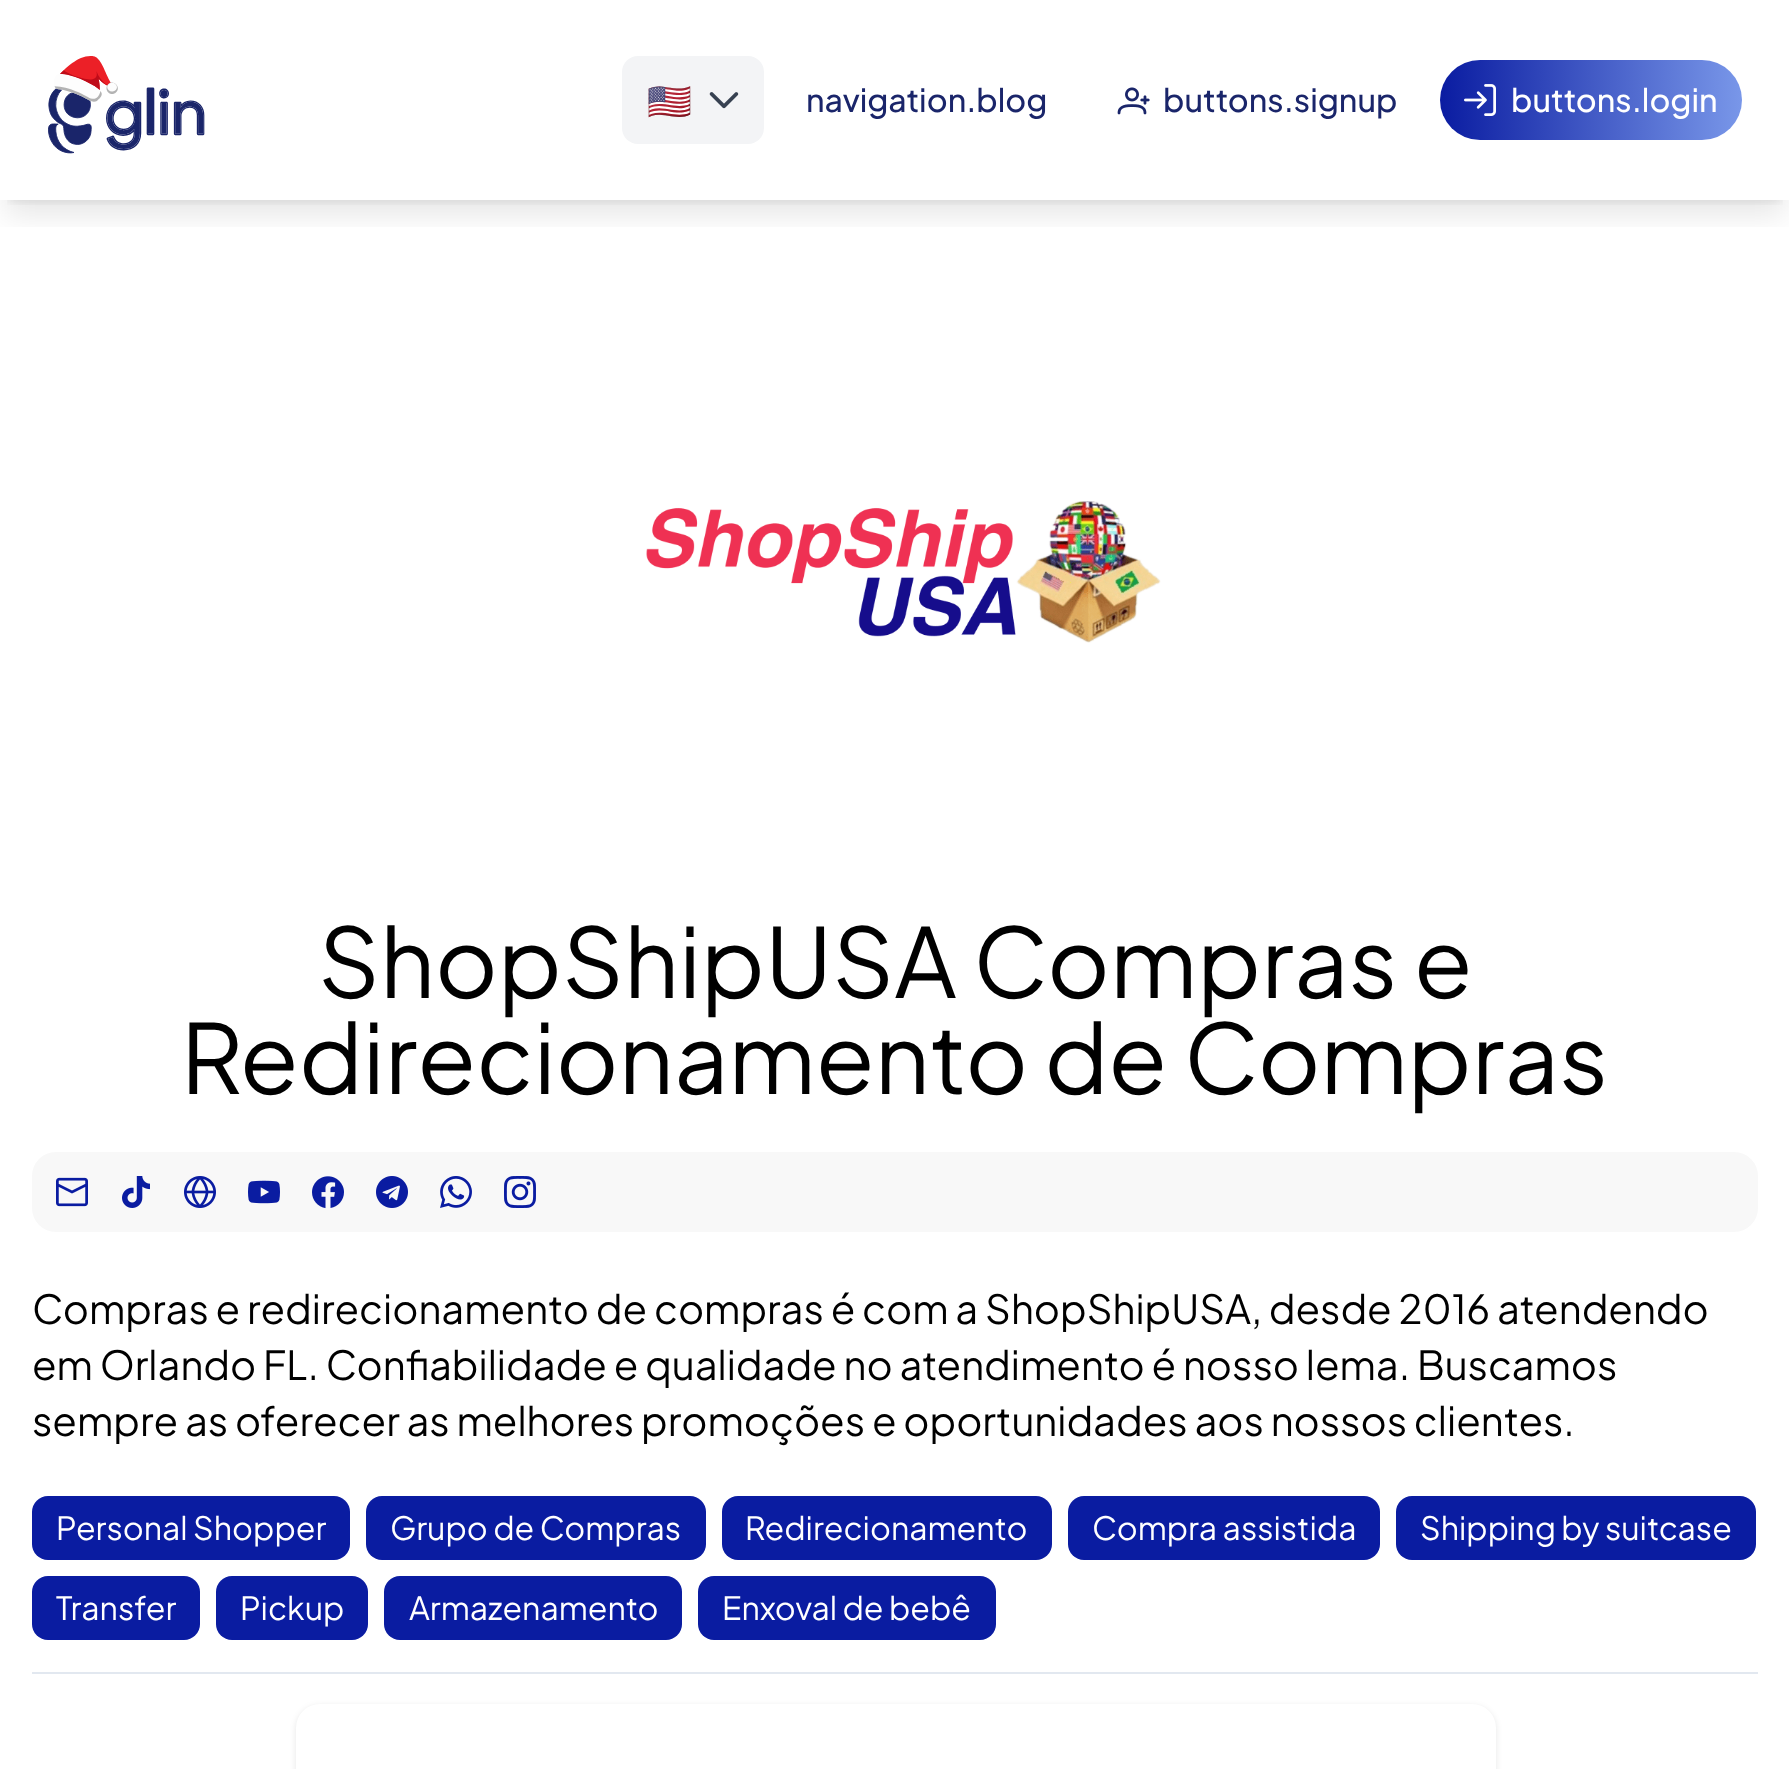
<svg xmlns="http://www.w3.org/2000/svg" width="1789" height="1769">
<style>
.a{font:36px Noto Color Emoji;fill:#374151}
.b{font:500 32px Plus Jakarta Sans;fill:#1a256a}
.c{font:500 32px Plus Jakarta Sans;fill:#fff}
.d{font:96px Plus Jakarta Sans;fill:#000}
.e{font:40px Plus Jakarta Sans;fill:#000}
.f{font:32px Plus Jakarta Sans;fill:#fff}
</style>
<defs>
<clipPath id="clip1"><path d="M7 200h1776v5H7z"/></clipPath>
<clipPath id="clip2"><path d="M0 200h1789v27H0z"/></clipPath>
<linearGradient id="g1" gradientUnits="userSpaceOnUse" x1="1440" y1="100" x2="1742" y2="100"><stop offset="0" stop-color="#0a1ca1"/><stop offset="1" stop-color="#7997e9"/></linearGradient>
</defs>
<rect width="100%" height="100%" fill="#fff"/>
<g clip-path="url(#clip1)">
<path fill="#0000001a" filter="blur(6px)" d="M8 16h1774v184H8z"/>
</g>
<g clip-path="url(#clip2)">
<path fill="#0000001a" filter="blur(15px)" d="M6 26h1778v188H6z"/>
</g>
<image href="1.png" x="48" y="56" width="157" height="98"/>
<rect fill="#f3f4f6" x="622" y="56" width="142" height="88" rx="16"/>
<image href="2.png" x="709" y="92" width="30" height="17"/>
<image href="3.png" x="1117" y="87" width="33" height="28"/>
<rect fill="url(#g1)" x="1440" y="60" width="302" height="80" rx="40"/>
<image href="4.png" x="1464" y="84" width="32" height="32"/>
<image href="5.png" x="646" y="501" width="515" height="142"/>
<rect fill="#f8f8f8" x="32" y="1152" width="1726" height="80" rx="24"/>
<image href="6.png" x="56" y="1177" width="32" height="30"/>
<image href="7.png" x="122" y="1176" width="28" height="32"/>
<image href="8.png" x="184" y="1176" width="32" height="32"/>
<image href="9.png" x="248" y="1180" width="32" height="24"/>
<image href="10.png" x="312" y="1176" width="32" height="33"/>
<image href="11.png" x="376" y="1176" width="32" height="32"/>
<image href="12.png" x="440" y="1176" width="32" height="32"/>
<image href="13.png" x="504" y="1176" width="32" height="32"/>
<rect fill="#0a1ca1" x="32" y="1496" width="318" height="64" rx="16"/>
<rect fill="#0a1ca1" x="366" y="1496" width="340" height="64" rx="16"/>
<rect fill="#0a1ca1" x="722" y="1496" width="330" height="64" rx="16"/>
<rect fill="#0a1ca1" x="1068" y="1496" width="312" height="64" rx="16"/>
<rect fill="#0a1ca1" x="1396" y="1496" width="360" height="64" rx="16"/>
<rect fill="#0a1ca1" x="32" y="1576" width="168" height="64" rx="16"/>
<rect fill="#0a1ca1" x="216" y="1576" width="152" height="64" rx="16"/>
<rect fill="#0a1ca1" x="384" y="1576" width="298" height="64" rx="16"/>
<rect fill="#0a1ca1" x="698" y="1576" width="298" height="64" rx="16"/>
<path fill="#e2e8f0" d="M32 1672h1726v2H32z"/>
<rect fill="#0000001a" filter="blur(3px)" x="296" y="1706" width="1200" height="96" rx="24"/>
<rect fill="#fff" x="296" y="1704" width="1200" height="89" rx="24"/>
<text class="a" x="647" y="114">🇺🇸</text>
<text class="b" x="806" y="112">navigation.blog</text>
<text class="b" x="1163" y="112">buttons.signup</text>
<text class="c" x="1511" y="112">buttons.login</text>
<text class="d" x="318" y="998">ShopShipUSA Compras e</text>
<text class="d" x="181" y="1094">Redirecionamento de Compras</text>
<text class="e" x="32" y="1324">Compras e redirecionamento de compras é com a ShopShipUSA, desde 2016 atendendo</text>
<text class="e" x="32" y="1380">em Orlando FL. Confiabilidade e qualidade no atendimento é nosso lema. Buscamos</text>
<text class="e" x="32" y="1436">sempre as oferecer as melhores promoções e oportunidades aos nossos clientes.</text>
<text class="f" x="56" y="1540">Personal Shopper</text>
<text class="f" x="390" y="1540">Grupo de Compras</text>
<text class="f" x="745" y="1540">Redirecionamento</text>
<text class="f" x="1092" y="1540">Compra assistida</text>
<text class="f" x="1420" y="1540">Shipping by suitcase</text>
<text class="f" x="56" y="1620">Transfer</text>
<text class="f" x="240" y="1620">Pickup</text>
<text class="f" x="409" y="1620">Armazenamento</text>
<text class="f" x="722" y="1620">Enxoval de bebê</text>
</svg>
